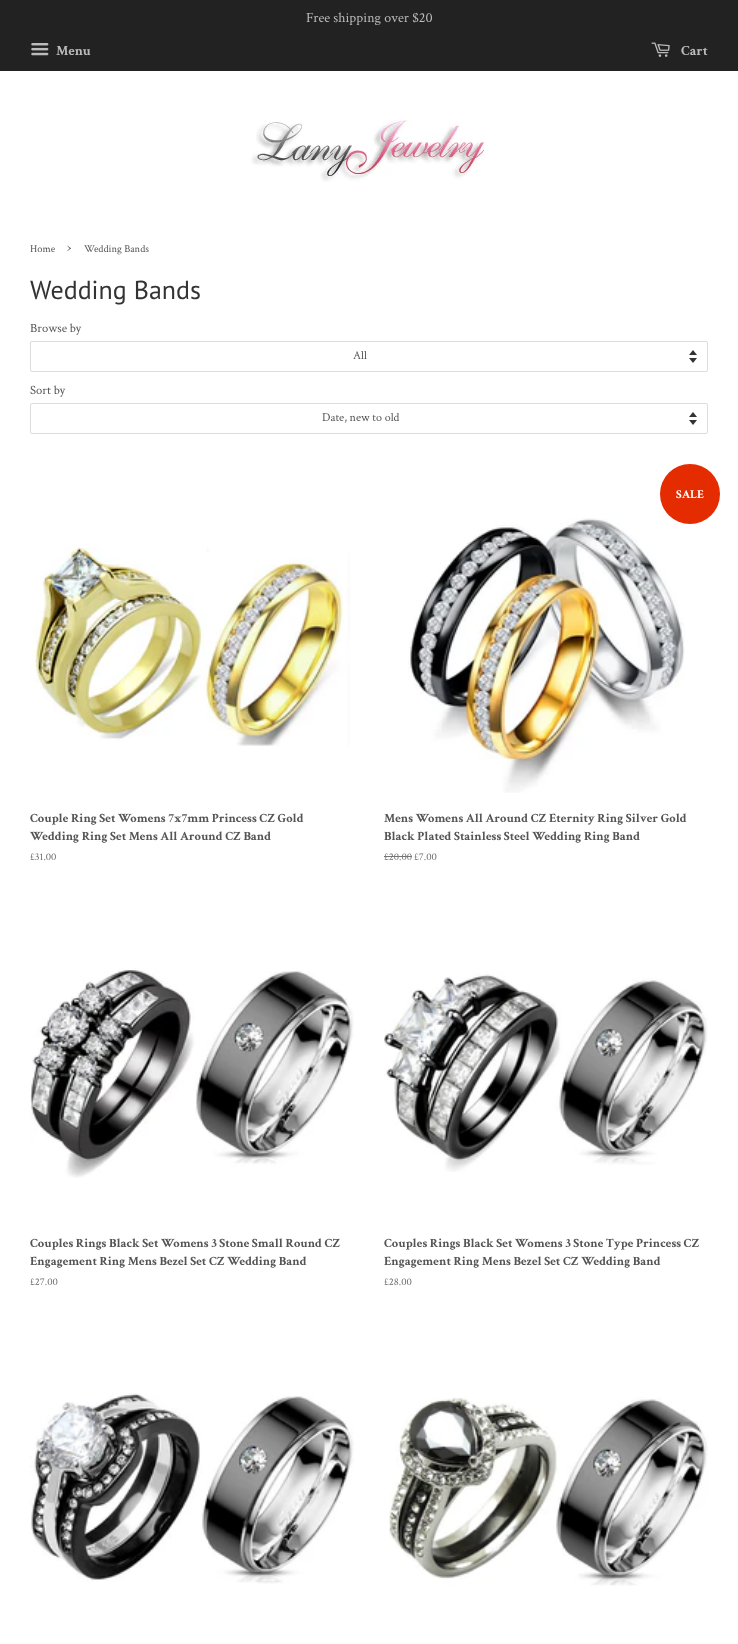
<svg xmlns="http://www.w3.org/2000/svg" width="738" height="1644">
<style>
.a{font:14px Crimson Text;fill:#bbb}
.b{font:bold 14px Crimson Text;fill:#bbb}
.c{font:10.5px Crimson Text;fill:#555}
.d{font:15px Crimson Text;fill:#555}
.e{font:26px PT Sans;fill:#333}
.f{font:12.6px Crimson Text;fill:#555}
.g{font:12px Crimson Text;fill:#555}
.h{font:bold 12.6px Crimson Text;fill:#555}
.i{font:10.5px Crimson Text;fill:#6e6e6e}
.j{font:bold 12px Crimson Text;fill:#fff}
.k{font:10.5px Crimson Text;fill:#757575}
</style>
<rect width="100%" height="100%" fill="#fff"/>
<path fill="#222" d="M0 0h738v71H0z"/>
<image href="1.png" x="31" y="43" width="18" height="13"/>
<image href="2.png" x="651" y="42" width="19" height="15"/>
<image href="3.png" x="251" y="119" width="234" height="63"/>
<image href="4.png" x="689" y="350" width="8" height="13"/>
<rect fill="none" stroke="#ddd" x="30.5" y="341.5" width="677" height="30" rx="1.5"/>
<image href="4.png" x="689" y="412" width="8" height="13"/>
<rect fill="none" stroke="#ddd" x="30.5" y="403.5" width="677" height="30" rx="1.5"/>
<image href="5.png" x="30" y="547" width="320" height="199"/>
<image href="6.png" x="408" y="518" width="277" height="275"/>
<circle fill="#e42c00" cx="690" cy="494" r="30"/>
<path fill="#757575" d="M384 856h28v1H384z"/>
<image href="7.png" x="30" y="968" width="324" height="210"/>
<image href="8.png" x="384" y="972" width="324" height="200"/>
<image href="9.png" x="30" y="1393" width="324" height="191"/>
<image href="10.png" x="389" y="1397" width="319" height="189"/>
<text class="a" x="306" y="22">Free shipping over $20</text>
<text class="b" x="56" y="55">Menu</text>
<text class="b" x="681" y="55">Cart</text>
<text class="c" x="30" y="252">Home</text>
<text class="d" x="67" y="252">›</text>
<text class="c" x="84" y="252">Wedding Bands</text>
<text class="e" x="30" y="299">Wedding Bands</text>
<text class="f" x="30" y="332">Browse by</text>
<text class="g" x="353" y="359">All</text>
<text class="f" x="30" y="394">Sort by</text>
<text class="g" x="322" y="421">Date, new to old</text>
<text class="h" x="30" y="822">Couple Ring Set Womens 7x7mm Princess CZ Gold</text>
<text class="h" x="30" y="840">Wedding Ring Set Mens All Around CZ Band</text>
<text class="i" x="30" y="860">£31.00</text>
<text class="j" x="676" y="498">SALE</text>
<text class="h" x="384" y="822">Mens Womens All Around CZ Eternity Ring Silver Gold</text>
<text class="h" x="384" y="840">Black Plated Stainless Steel Wedding Ring Band</text>
<text class="k" x="384" y="860">£20.00</text>
<text class="i" x="414" y="860">£7.00</text>
<text class="h" x="30" y="1247">Couples Rings Black Set Womens 3 Stone Small Round CZ</text>
<text class="h" x="30" y="1265">Engagement Ring Mens Bezel Set CZ Wedding Band</text>
<text class="i" x="30" y="1285">£27.00</text>
<text class="h" x="384" y="1247">Couples Rings Black Set Womens 3 Stone Type Princess CZ</text>
<text class="h" x="384" y="1265">Engagement Ring Mens Bezel Set CZ Wedding Band</text>
<text class="i" x="384" y="1285">£28.00</text>
</svg>
